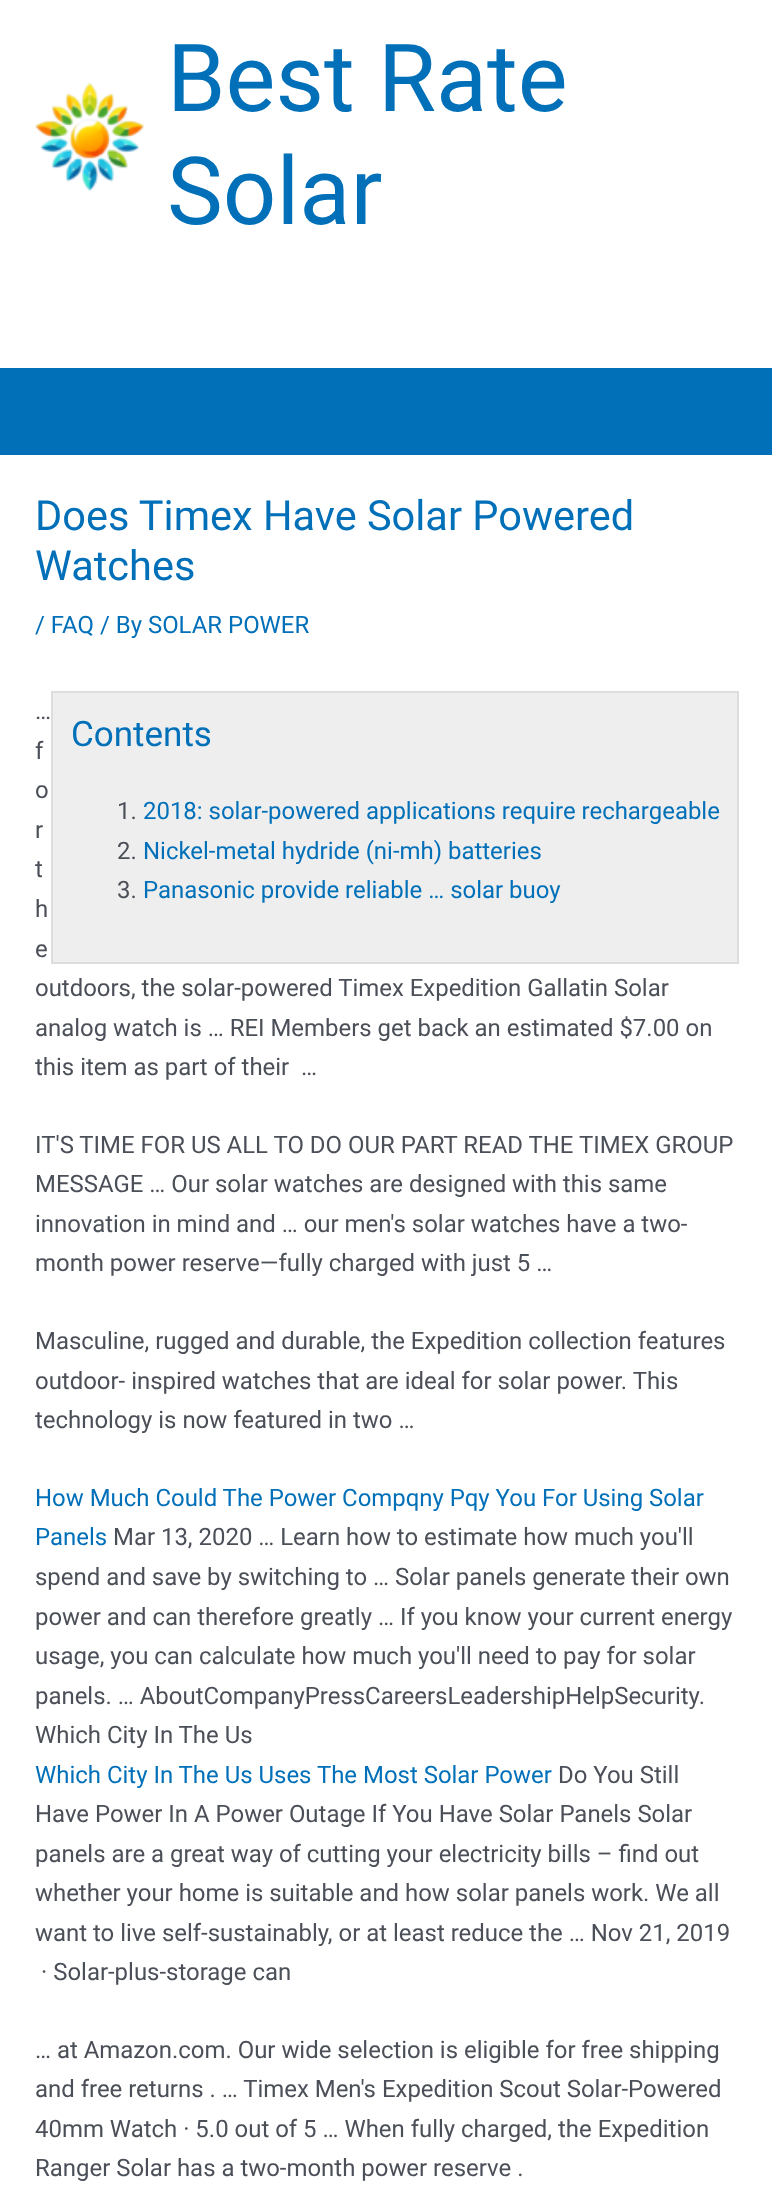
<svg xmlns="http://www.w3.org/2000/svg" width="772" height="2208">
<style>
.a{font:94px Roboto;fill:#0170b9}
.b{font:41.5px Roboto;fill:#0170b9}
.c{font:23.95px Roboto;fill:#0170b9}
.d{font:23.95px Roboto;fill:#4b4f58}
.e{font:35px Roboto;fill:#0170b9}
</style>
<rect width="100%" height="100%" fill="#fff"/>
<path fill="#0170b9" d="M0 368h772v87H0z"/>
<image href="1.png" x="35" y="82" width="109" height="109"/>
<path fill="#eee" stroke="#ddd" stroke-width="2" d="M52 692h686v271H52z"/>
<text class="a" x="167" y="111">Best Rate</text>
<text class="a" x="167" y="224">Solar</text>
<text class="b" x="35" y="530">Does Timex Have Solar Powered</text>
<text class="b" x="35" y="580">Watches</text>
<text class="c" x="35" y="633">/ FAQ / By SOLAR POWER</text>
<text class="d" x="35" y="719">…</text>
<text class="d" x="35" y="759">f</text>
<text class="d" x="35" y="798">o</text>
<text class="d" x="35" y="838">r</text>
<text class="d" x="35" y="877">t</text>
<text class="d" x="35" y="917">h</text>
<text class="d" x="35" y="957">e</text>
<text class="d" x="35" y="996">outdoors, the solar-powered Timex Expedition Gallatin Solar</text>
<text class="d" x="35" y="1036">analog watch is … REI Members get back an estimated $7.00 on</text>
<text class="d" xml:space="preserve" x="35" y="1075">this item as part of their  …</text>
<text class="e" x="71" y="746">Contents</text>
<text class="d" x="117" y="819">1.</text>
<text class="c" x="143" y="819">2018: solar-powered applications require rechargeable</text>
<text class="d" x="117" y="859">2.</text>
<text class="c" x="143" y="859">Nickel-metal hydride (ni-mh) batteries</text>
<text class="d" x="117" y="898">3.</text>
<text class="c" x="143" y="898">Panasonic provide reliable … solar buoy</text>
<text class="d" x="35" y="1153">IT'S TIME FOR US ALL TO DO OUR PART READ THE TIMEX GROUP</text>
<text class="d" x="35" y="1192">MESSAGE … Our solar watches are designed with this same</text>
<text class="d" x="35" y="1232">innovation in mind and … our men's solar watches have a two-</text>
<text class="d" x="35" y="1271">month power reserve—fully charged with just 5 …</text>
<text class="d" x="35" y="1349">Masculine, rugged and durable, the Expedition collection features</text>
<text class="d" x="35" y="1389">outdoor- inspired watches that are ideal for solar power. This</text>
<text class="d" x="35" y="1428">technology is now featured in two …</text>
<text class="c" x="35" y="1506">How Much Could The Power Compqny Pqy You For Using Solar</text>
<text class="c" x="35" y="1545">Panels</text>
<text class="d" x="113" y="1545">Mar 13, 2020 … Learn how to estimate how much you'll</text>
<text class="d" x="35" y="1585">spend and save by switching to … Solar panels generate their own</text>
<text class="d" x="35" y="1625">power and can therefore greatly … If you know your current energy</text>
<text class="d" x="35" y="1664">usage, you can calculate how much you'll need to pay for solar</text>
<text class="d" x="35" y="1704">panels. … AboutCompanyPressCareersLeadershipHelpSecurity.</text>
<text class="d" x="35" y="1743">Which City In The Us</text>
<text class="c" x="35" y="1783">Which City In The Us Uses The Most Solar Power</text>
<text class="d" x="558" y="1783">Do You Still</text>
<text class="d" x="35" y="1822">Have Power In A Power Outage If You Have Solar Panels Solar</text>
<text class="d" x="35" y="1862">panels are a great way of cutting your electricity bills – find out</text>
<text class="d" x="35" y="1901">whether your home is suitable and how solar panels work. We all</text>
<text class="d" x="35" y="1941">want to live self-sustainably, or at least reduce the … Nov 21, 2019</text>
<text class="d" x="41" y="1980">· Solar-plus-storage can</text>
<text class="d" x="35" y="2058">… at Amazon.com. Our wide selection is eligible for free shipping</text>
<text class="d" x="35" y="2097">and free returns . … Timex Men's Expedition Scout Solar-Powered</text>
<text class="d" x="35" y="2137">40mm Watch · 5.0 out of 5 … When fully charged, the Expedition</text>
<text class="d" x="35" y="2176">Ranger Solar has a two-month power reserve .</text>
</svg>
